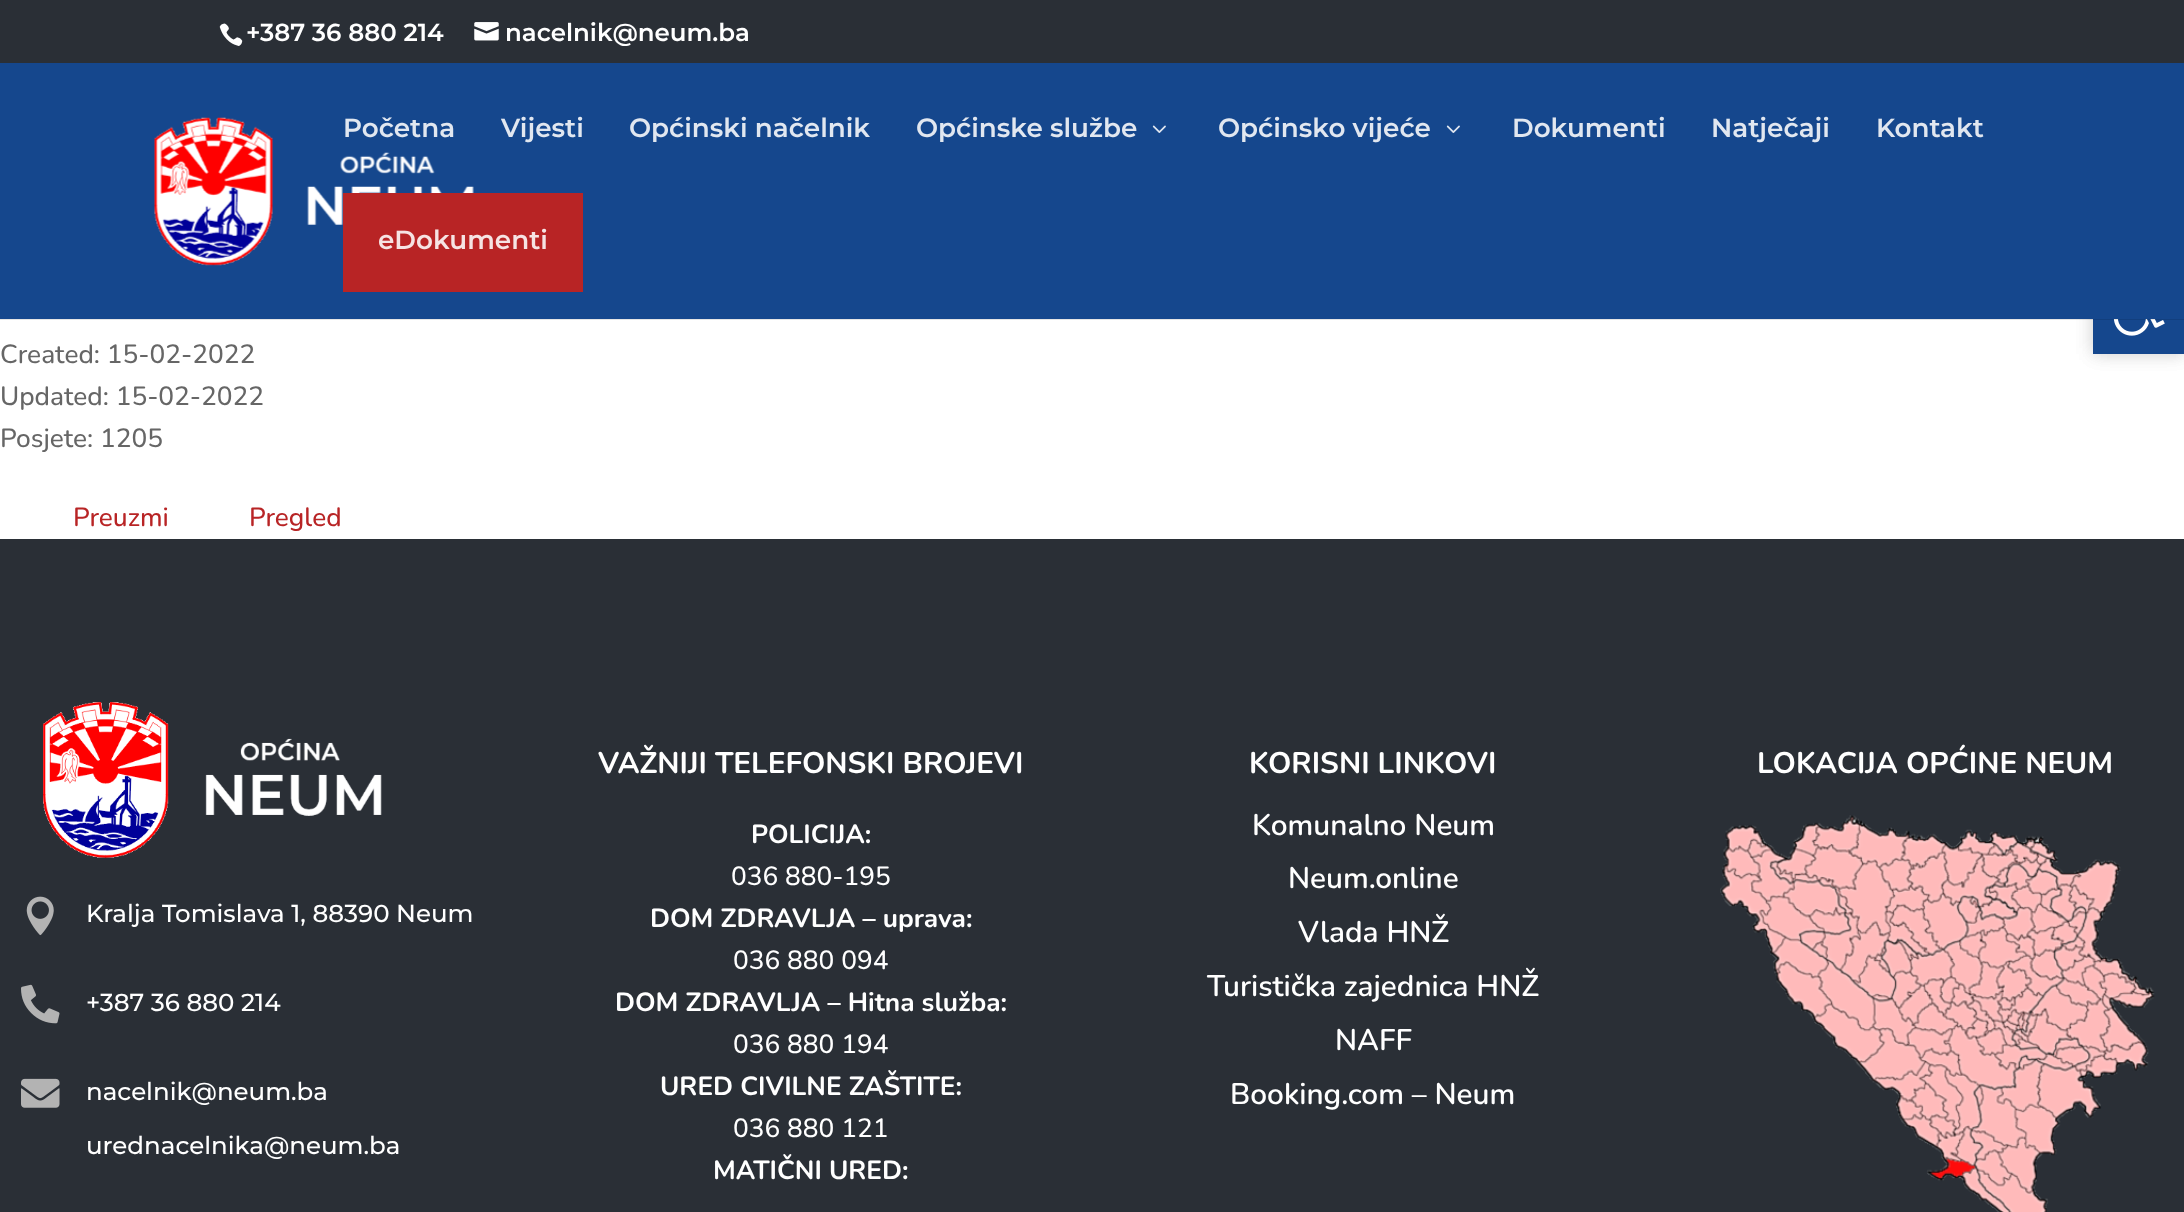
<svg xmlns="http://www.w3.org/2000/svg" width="2184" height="1212">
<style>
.a{font:100 24.5px 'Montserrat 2';fill:#fff}
.b{font:100 26.25px 'Montserrat 2';fill:#e1e7f0}
.c{font:100 26.25px 'Montserrat 2';fill:#f6e3e3}
.d{font:200 26.25px Nunito;fill:#666}
.e{font:200 26.25px Nunito;fill:#b82425}
.f{font:100 24.5px Montserrat;fill:#fff}
.g{font:200 29.75px 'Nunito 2';fill:#fff}
.h{font:200 26.25px 'Nunito 2';fill:#fff}
.i{font:200 26.25px Nunito;fill:#fff}
.j{font:200 29.75px 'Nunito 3';fill:#fff}
</style>
<rect width="100%" height="100%" fill="#fff"/>
<path fill="#2a2f36" d="M0 0h2184v63H0z"/>
<image href="1.png" x="219" y="23" width="24" height="23"/>
<image href="2.png" x="474" y="22" width="25" height="19"/>
<path fill="#0000001a" filter="blur(9px)" d="M2093 263h91v91H2093z"/>
<path fill="#0000001a" filter="blur(9px)" d="M2093 263h91v91H2093z"/>
<path fill="#15478d" d="M2093 319h91v35H2093z"/>
<image href="10.png" x="2113" y="319" width="52" height="17"/>
<path fill="#0000001a" d="M0 319h2184v1H0z"/>
<path fill="#15478d" d="M0 63h2184v256H0z"/>
<image href="3.png" x="154" y="117" width="320" height="149"/>
<image href="4.png" x="1152" y="125" width="14" height="8"/>
<image href="4.png" x="1446" y="125" width="14" height="8"/>
<path fill="#b82425" d="M343 193h240v99H343z"/>
<path fill="#2a2f36" d="M0 539h2184v673H0z"/>
<image href="5.png" x="43" y="702" width="339" height="156"/>
<image href="6.png" x="26" y="896" width="28" height="40"/>
<image href="7.png" x="21" y="984" width="39" height="40"/>
<image href="8.png" x="21" y="1078" width="39" height="30"/>
<image href="9.png" x="1720" y="815" width="435" height="397"/>
<text class="a" x="246" y="41">+387 36 880 214</text>
<text class="a" x="505" y="41">nacelnik@neum.ba</text>
<text class="b" x="343" y="137">Početna</text>
<text class="b" x="501" y="137">Vijesti</text>
<text class="b" x="629" y="137">Općinski načelnik</text>
<text class="b" x="916" y="137">Općinske službe</text>
<text class="b" x="1218" y="137">Općinsko vijeće</text>
<text class="b" x="1512" y="137">Dokumenti</text>
<text class="b" x="1711" y="137">Natječaji</text>
<text class="b" x="1876" y="137">Kontakt</text>
<text class="c" x="378" y="249">eDokumenti</text>
<text class="d" x="0" y="363">Created: 15-02-2022</text>
<text class="d" x="0" y="405">Updated: 15-02-2022</text>
<text class="d" x="0" y="447">Posjete: 1205</text>
<text class="e" x="73" y="526">Preuzmi</text>
<text class="e" x="249" y="526">Pregled</text>
<text class="f" x="86" y="922">Kralja Tomislava 1, 88390 Neum</text>
<text class="f" x="86" y="1011">+387 36 880 214</text>
<text class="f" x="86" y="1100">nacelnik@neum.ba</text>
<text class="f" x="86" y="1154">urednacelnika@neum.ba</text>
<text class="g" x="598" y="773">VAŽNIJI TELEFONSKI BROJEVI</text>
<text class="h" x="751" y="843">POLICIJA:</text>
<text class="i" x="731" y="885">036 880-195</text>
<text class="h" x="650" y="927">DOM ZDRAVLJA – uprava:</text>
<text class="i" x="733" y="969">036 880 094</text>
<text class="h" x="615" y="1011">DOM ZDRAVLJA – Hitna služba:</text>
<text class="i" x="733" y="1053">036 880 194</text>
<text class="h" x="660" y="1095">URED CIVILNE ZAŠTITE:</text>
<text class="i" x="733" y="1137">036 880 121</text>
<text class="h" x="713" y="1179">MATIČNI URED:</text>
<text class="g" x="1249" y="773">KORISNI LINKOVI</text>
<text class="j" x="1252" y="835">Komunalno Neum</text>
<text class="j" x="1288" y="888">Neum.online</text>
<text class="j" x="1298" y="942">Vlada HNŽ</text>
<text class="j" x="1207" y="996">Turistička zajednica HNŽ</text>
<text class="j" x="1335" y="1050">NAFF</text>
<text class="j" x="1230" y="1104">Booking.com – Neum</text>
<text class="g" x="1757" y="773">LOKACIJA OPĆINE NEUM</text>
</svg>
